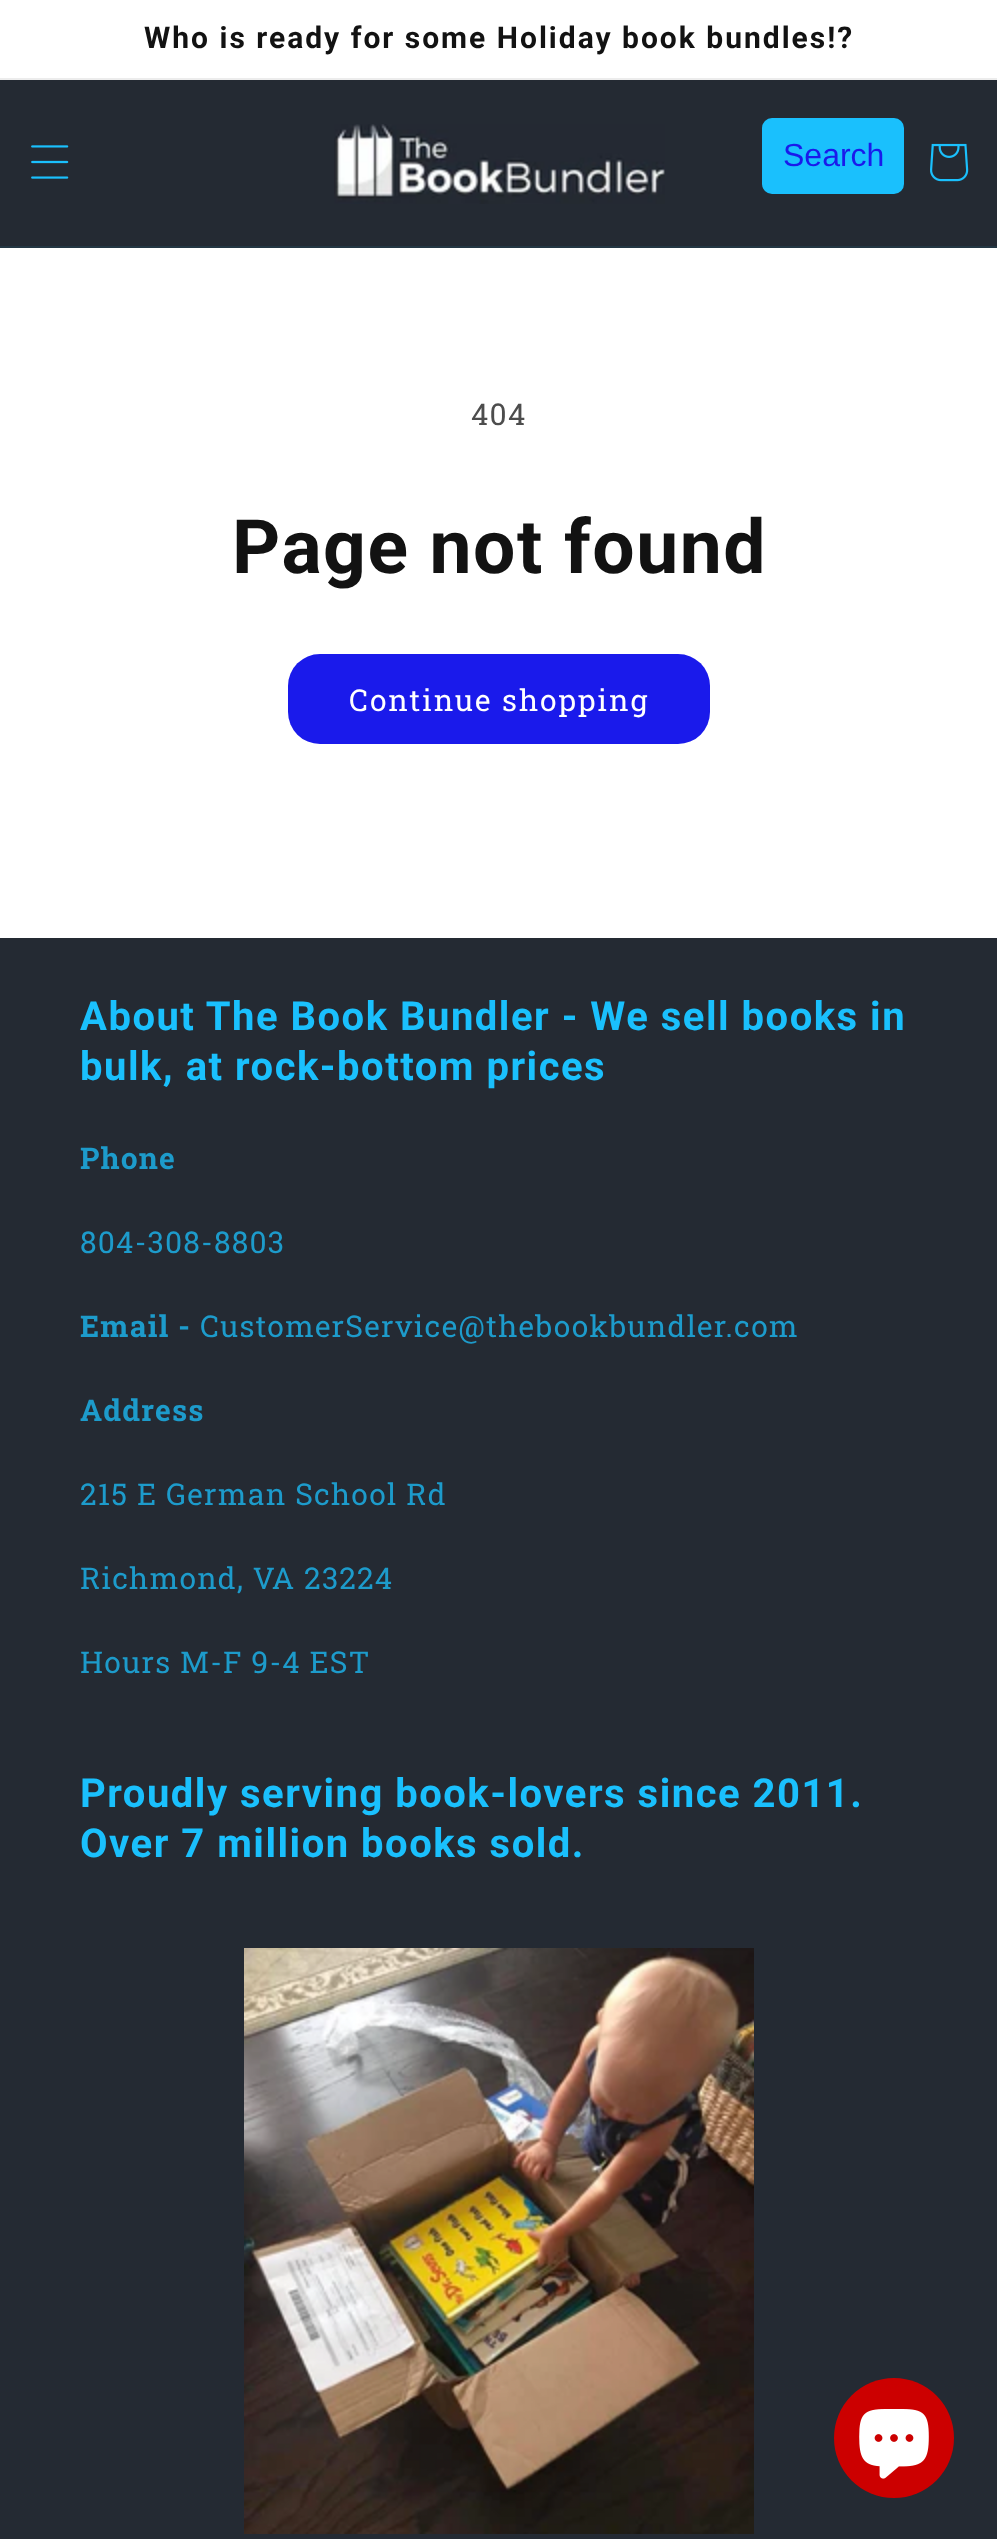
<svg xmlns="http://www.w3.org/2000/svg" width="997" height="2539">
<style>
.a{font:bold 30px Roboto;letter-spacing:2px;fill:#121212}
.b{font:32px Liberation Sans;fill:#1a1aeb}
.c{font:30px Roboto Slab;letter-spacing:1.2px;fill:#4d4d4d}
.d{font:bold 75px Roboto;letter-spacing:1.5px;fill:#121212}
.e{font:30px Roboto Slab;letter-spacing:2px;fill:#fff}
.f{font:bold 40px Roboto;letter-spacing:1.5px;fill:#1ac0fd}
.g{font:bold 30px Roboto Slab;letter-spacing:1.2px;fill:#1d9bcb}
.h{font:30px Roboto Slab;letter-spacing:1.2px;fill:#1d9bcb}
</style>
<rect width="100%" height="100%" fill="#fff"/>
<path fill="#ececec" d="M0 78h997v2H0z"/>
<path fill="#242a33" d="M0 80h997v166H0z"/>
<path fill="#233643" d="M0 246h997v2H0z"/>
<image href="1.png" x="31" y="145" width="38" height="34"/>
<image href="2.png" x="334" y="124" width="331" height="80"/>
<rect fill="#1ac0fd" x="762" y="118" width="142" height="76" rx="10"/>
<image href="3.png" x="930" y="143" width="39" height="39"/>
<rect fill="#1a1aeb" x="288" y="654" width="422" height="90" rx="32"/>
<path fill="#242a33" d="M0 938h997v1601H0z"/>
<image href="4.png" x="244" y="1948" width="510" height="586"/>
<circle fill="#c00" cx="894" cy="2438" r="60"/>
<image href="5.png" x="859" y="2409" width="70" height="70"/>
<text class="a" x="144" y="48">Who is ready for some Holiday book bundles!?</text>
<text class="b" x="783" y="166">Search</text>
<text class="c" x="471" y="425">404</text>
<text class="d" x="232" y="573">Page not found</text>
<text class="e" x="349" y="711">Continue shopping</text>
<text class="f" x="80" y="1030">About The Book Bundler - We sell books in</text>
<text class="f" x="80" y="1080">bulk, at rock-bottom prices</text>
<text class="g" x="80" y="1169">Phone</text>
<text class="h" x="80" y="1253">804-308-8803</text>
<text class="g" x="80" y="1337">Email -</text>
<text class="h" x="200" y="1337">CustomerService@thebookbundler.com</text>
<text class="g" x="80" y="1421">Address</text>
<text class="h" x="80" y="1505">215 E German School Rd</text>
<text class="h" x="80" y="1589">Richmond, VA 23224</text>
<text class="h" x="80" y="1673">Hours M-F 9-4 EST</text>
<text class="f" x="80" y="1807">Proudly serving book-lovers since 2011.</text>
<text class="f" x="80" y="1857">Over 7 million books sold.</text>
</svg>
